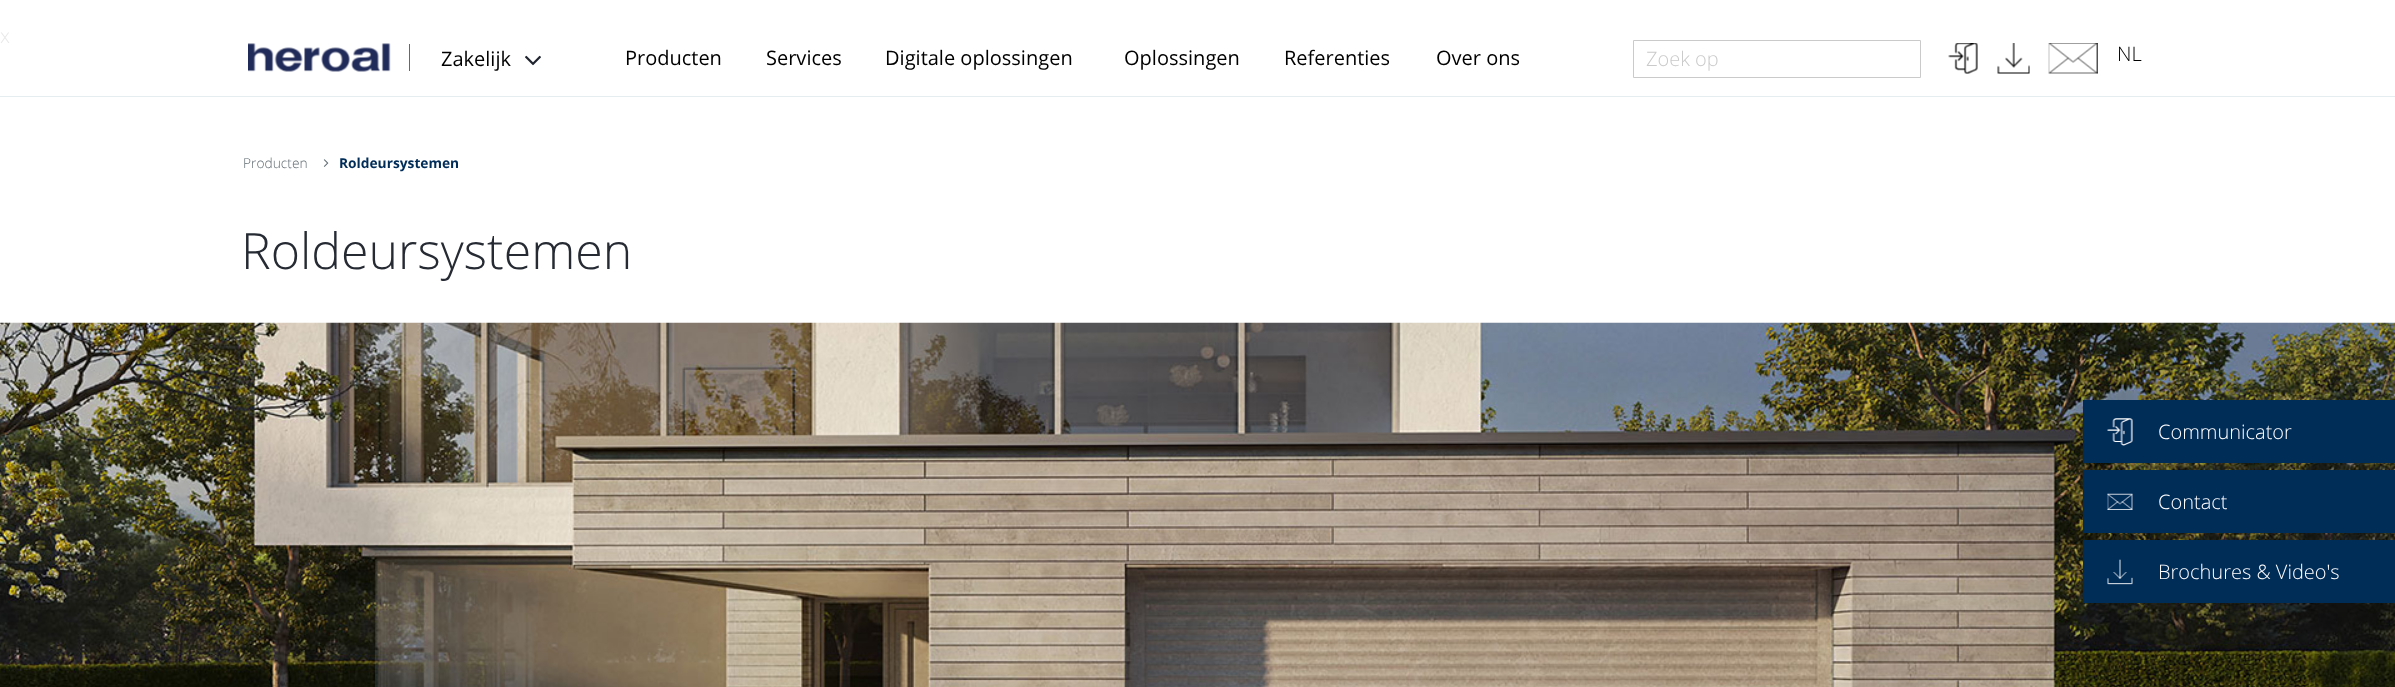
<svg xmlns="http://www.w3.org/2000/svg" width="2395" height="687">
<style>
.a{font:300 20px Open Sans;fill:#e8e8e9}
.b{font:20px Open Sans;fill:#000}
.c{font:300 20px Open Sans;fill:#cacaca}
.d{font:300 20px Open Sans;fill:#000}
.e{font:300 13.75px Open Sans;fill:#5f6a71}
.f{font:bold 13.75px Open Sans;fill:#002c58}
.g{font:300 50px Open Sans;fill:#252a33}
.h{font:300 20px Open Sans;fill:#fff}
</style>
<rect width="100%" height="100%" fill="#fff"/>
<path fill="#5f6a71" d="M409 44h1v27H409z"/>
<image href="1.png" x="248" y="43" width="143" height="29"/>
<image href="2.png" x="525" y="55" width="16" height="11"/>
<path fill="none" stroke="#cacaca" d="M1633.5 40.5h287v37H1633.5z"/>
<image href="3.png" x="1948" y="43" width="30" height="31"/>
<image href="4.png" x="1997" y="43" width="33" height="31"/>
<image href="5.png" x="2048" y="43" width="50" height="31"/>
<path fill="#e5edf1" d="M0 96h2395v1H0z"/>
<image href="6.png" x="323" y="159" width="6" height="8"/>
<image href="7.png" x="0" y="322" width="2395" height="365"/>
<path fill="#002c58" d="M2083 400h312v63H2083z"/>
<image href="8.png" x="2107" y="418" width="26" height="28"/>
<path fill="#002c58" d="M2083 470h312v63H2083z"/>
<image href="9.png" x="2107" y="493" width="26" height="17"/>
<path fill="#002c58" d="M2083 540h312v63H2083z"/>
<image href="10.png" x="2107" y="559" width="26" height="26"/>
<text class="a" x="0" y="43">x</text>
<text class="b" x="441" y="66">Zakelijk</text>
<text class="b" x="625" y="65">Producten</text>
<text class="b" x="766" y="65">Services</text>
<text class="b" x="885" y="65">Digitale oplossingen</text>
<text class="b" x="1124" y="65">Oplossingen</text>
<text class="b" x="1284" y="65">Referenties</text>
<text class="b" x="1436" y="65">Over ons</text>
<text class="c" x="1646" y="66">Zoek op</text>
<text class="d" x="2117" y="61">NL</text>
<text class="e" x="243" y="168">Producten</text>
<text class="f" x="339" y="168">Roldeursystemen</text>
<text class="g" x="241" y="269">Roldeursystemen</text>
<text class="h" x="2158" y="439">Communicator</text>
<text class="h" x="2158" y="509">Contact</text>
<text class="h" x="2158" y="579">Brochures &amp; Video's</text>
</svg>
